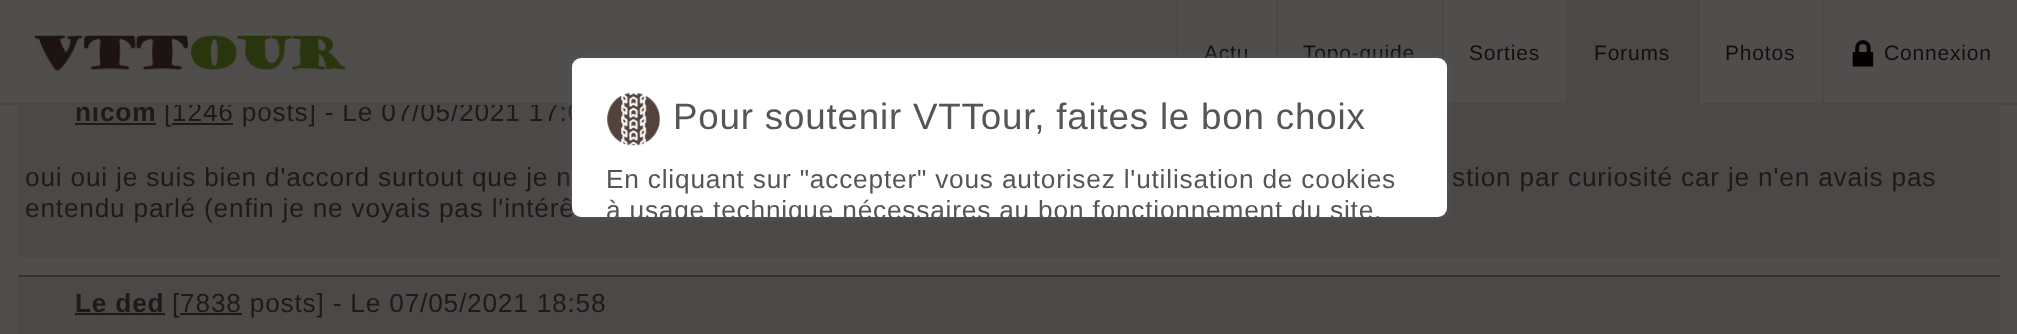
<svg xmlns="http://www.w3.org/2000/svg" width="2017" height="334">
<style>
.a{font:21px Liberation Sans;letter-spacing:0.8px;fill:#130f0f}
.b{font:bold 26.25px Liberation Sans;letter-spacing:0.8px;fill:#1d1a1a}
.c{font:26.25px Liberation Sans;letter-spacing:0.8px;fill:#1d1a1a}
.d{font:36.75px Liberation Sans;letter-spacing:0.8px;fill:#555}
.e{font:26.25px Liberation Sans;letter-spacing:0.8px;fill:#555}
</style>
<defs>
<clipPath id="clip1"><rect x="572" y="58" width="875" height="159" rx="9"/></clipPath>
</defs>
<rect width="100%" height="100%" fill="#504d4d"/>
<image href="1.png" x="34" y="35" width="312" height="36"/>
<path fill="#4b4747" d="M1176 0h2v58H1176z"/>
<path fill="#4b4747" d="M1276 0h2v58H1276z"/>
<path fill="#4b4747" d="M1442 0h2v61H1442z"/>
<path fill="#4d4848" d="M1568 0h130v103H1568z"/>
<image href="2.png" x="1852" y="40" width="22" height="27"/>
<path fill="#4d4848" d="M18 105h1982v152H18z"/>
<path fill="#1d1a1a" d="M75 123h81v2H75z"/>
<path fill="#1d1a1a" d="M172 123h61v2H172z"/>
<path fill="#4d4848" d="M18 277h1982v57H18z"/>
<path fill="#3c322f" d="M18 275h1982v2H18z"/>
<path fill="#1d1a1a" d="M75 313h90v2H75z"/>
<path fill="#1d1a1a" d="M180 313h62v2H180z"/>
<text class="a" x="1204" y="60">Actu</text>
<text class="a" x="1303" y="60">Topo-guide</text>
<text class="a" x="1469" y="60">Sorties</text>
<text class="a" x="1594" y="60">Forums</text>
<text class="a" x="1725" y="60">Photos</text>
<text class="a" x="1884" y="60">Connexion</text>
<text class="b" x="75" y="121">nicom</text>
<text class="c" x="164" y="121">[1246 posts] - Le 07/05/2021 17:0</text>
<path fill="#4b4747" d="M0 103h2017v2H0z"/>
<path fill="#4b4747" d="M1822 0h2v105H1822z"/>
<path fill="#4b4747" d="M1698 0h2v105H1698z"/>
<path fill="#4b4747" d="M1566 0h2v105H1566z"/>
<path fill="#504d4d" d="M93 102h483v1H93z"/>
<text class="c" x="25" y="186">oui oui je suis bien d'accord surtout que je n</text>
<text class="c" x="1452" y="186">stion par curiosité car je n'en avais pas</text>
<text class="c" x="25" y="217">entendu parlé (enfin je ne voyais pas l'intérê</text>
<text class="b" x="75" y="312">Le ded</text>
<text class="c" x="172" y="312">[7838 posts] - Le 07/05/2021 18:58</text>
<rect fill="#555" filter="blur(4.5px)" x="572" y="58" width="875" height="159" rx="9"/>
<rect fill="#fff" x="572" y="58" width="875" height="159" rx="9"/>
<image href="3.png" x="607" y="92" width="53" height="54"/>
<text class="d" x="673" y="129">Pour soutenir VTTour, faites le bon choix</text>
<text class="e" x="606" y="188">En cliquant sur "accepter" vous autorisez l'utilisation de cookies</text>
<g clip-path="url(#clip1)">
<text class="e" x="606" y="219">à usage technique nécessaires au bon fonctionnement du site,</text>
</g>
</svg>
